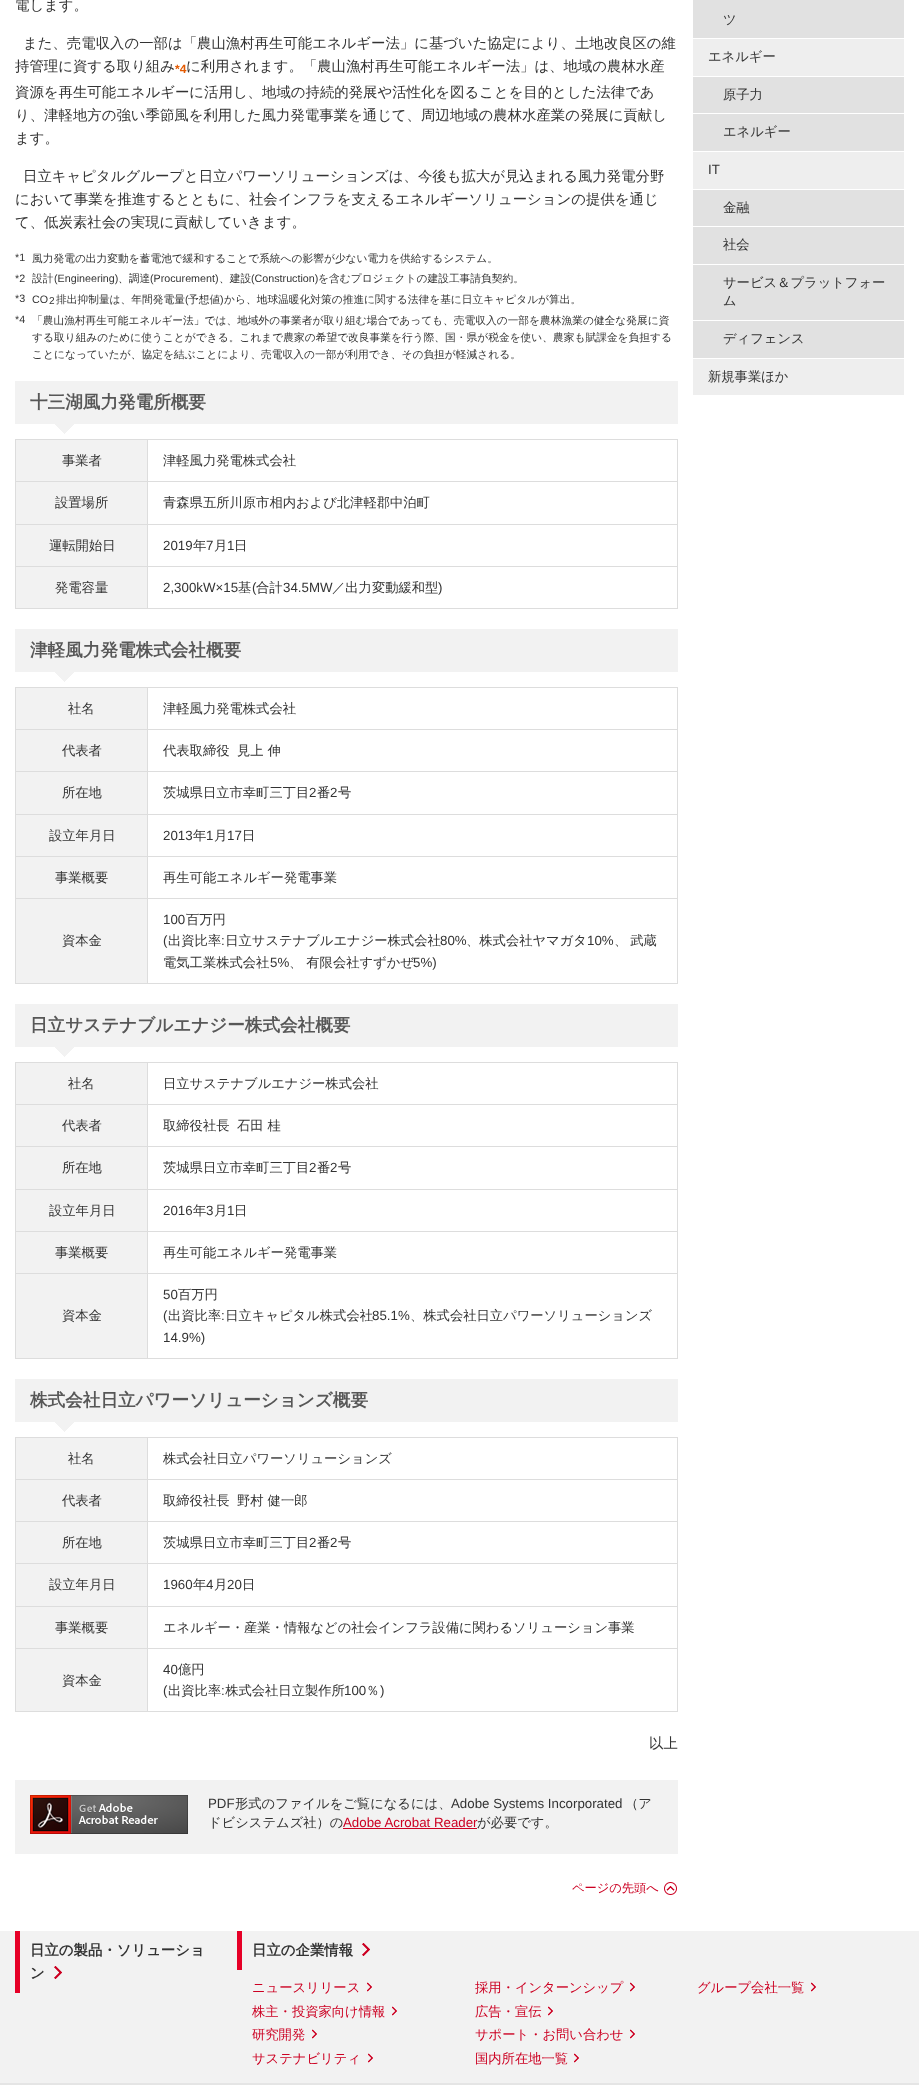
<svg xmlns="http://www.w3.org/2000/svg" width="919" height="2085">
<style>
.a{font:500 14.4px WenQuanYi Zen Hei;fill:#333}
.b{font:bold 12px Liberation Sans;fill:#e45a01}
.c{font:10.72px Liberation Sans;fill:#333}
.d{font:500 10.72px WenQuanYi Zen Hei;fill:#333}
.e{font:10px Liberation Sans;fill:#333}
.f{font:bold 17.6px WenQuanYi Zen Hei;fill:#575757}
.g{font:500 13.3px WenQuanYi Zen Hei;fill:#333}
.h{font:13.3px Liberation Sans;fill:#333}
.i{font:13.3px Liberation Sans;fill:#c02}
.j{font:500 12.25px WenQuanYi Zen Hei;fill:#c02}
.k{font:bold 14.4px WenQuanYi Zen Hei;fill:#333}
.l{font:500 13.3px WenQuanYi Zen Hei;fill:#c02}
</style>
<rect width="100%" height="100%" fill="#e5e5e5"/>
<path fill="#fff" d="M0 0h919v1930H0z"/>
<image href="1.png" x="55" y="424" width="19" height="10"/>
<path fill="#f2f2f2" d="M15 381h663v43H15z"/>
<path fill="#f2f2f2" d="M16 440h131v41H16z"/>
<path fill="#ddd" d="M147 439h531v1H147z"/>
<path fill="#ddd" d="M147 481h531v1H147z"/>
<path fill="#ddd" d="M147 524h531v1H147z"/>
<path fill="#ddd" d="M147 566h531v1H147z"/>
<path fill="#ddd" d="M677 566h1v43H677z"/>
<path fill="#ddd" d="M147 608h531v1H147z"/>
<path fill="#ddd" d="M147 566h1v43H147z"/>
<path fill="#ddd" d="M15 566h133v1H15z"/>
<path fill="#ddd" d="M147 524h1v43H147z"/>
<path fill="#ddd" d="M15 524h133v1H15z"/>
<path fill="#ddd" d="M147 481h1v44H147z"/>
<path fill="#ddd" d="M15 481h133v1H15z"/>
<path fill="#ddd" d="M147 439h1v43H147z"/>
<path fill="#ddd" d="M15 439h133v1H15z"/>
<path fill="#ddd" d="M15 608h133v1H15z"/>
<path fill="#ddd" d="M15 566h1v43H15z"/>
<path fill="#ddd" d="M15 524h1v43H15z"/>
<path fill="#ddd" d="M15 481h1v44H15z"/>
<path fill="#ddd" d="M15 439h1v43H15z"/>
<path fill="#ddd" d="M677 524h1v43H677z"/>
<path fill="#ddd" d="M677 481h1v44H677z"/>
<path fill="#ddd" d="M677 439h1v43H677z"/>
<path fill="#f2f2f2" d="M16 482h131v42H16z"/>
<path fill="#f2f2f2" d="M16 525h131v41H16z"/>
<path fill="#f2f2f2" d="M16 567h131v41H16z"/>
<image href="1.png" x="55" y="672" width="19" height="10"/>
<path fill="#f2f2f2" d="M15 629h663v43H15z"/>
<path fill="#f2f2f2" d="M16 688h131v41H16z"/>
<path fill="#ddd" d="M147 687h531v1H147z"/>
<path fill="#ddd" d="M147 729h531v1H147z"/>
<path fill="#ddd" d="M147 771h531v1H147z"/>
<path fill="#ddd" d="M147 814h531v1H147z"/>
<path fill="#ddd" d="M147 856h531v1H147z"/>
<path fill="#ddd" d="M147 898h531v1H147z"/>
<path fill="#ddd" d="M677 898h1v86H677z"/>
<path fill="#ddd" d="M147 983h531v1H147z"/>
<path fill="#ddd" d="M147 898h1v86H147z"/>
<path fill="#ddd" d="M15 898h133v1H15z"/>
<path fill="#ddd" d="M147 856h1v43H147z"/>
<path fill="#ddd" d="M15 856h133v1H15z"/>
<path fill="#ddd" d="M147 814h1v43H147z"/>
<path fill="#ddd" d="M15 814h133v1H15z"/>
<path fill="#ddd" d="M147 771h1v44H147z"/>
<path fill="#ddd" d="M15 771h133v1H15z"/>
<path fill="#ddd" d="M147 729h1v43H147z"/>
<path fill="#ddd" d="M15 729h133v1H15z"/>
<path fill="#ddd" d="M147 687h1v43H147z"/>
<path fill="#ddd" d="M15 687h133v1H15z"/>
<path fill="#ddd" d="M15 983h133v1H15z"/>
<path fill="#ddd" d="M15 898h1v86H15z"/>
<path fill="#ddd" d="M15 856h1v43H15z"/>
<path fill="#ddd" d="M15 814h1v43H15z"/>
<path fill="#ddd" d="M15 771h1v44H15z"/>
<path fill="#ddd" d="M15 729h1v43H15z"/>
<path fill="#ddd" d="M15 687h1v43H15z"/>
<path fill="#ddd" d="M677 856h1v43H677z"/>
<path fill="#ddd" d="M677 814h1v43H677z"/>
<path fill="#ddd" d="M677 771h1v44H677z"/>
<path fill="#ddd" d="M677 729h1v43H677z"/>
<path fill="#ddd" d="M677 687h1v43H677z"/>
<path fill="#f2f2f2" d="M16 730h131v41H16z"/>
<path fill="#f2f2f2" d="M16 772h131v42H16z"/>
<path fill="#f2f2f2" d="M16 815h131v41H16z"/>
<path fill="#f2f2f2" d="M16 857h131v41H16z"/>
<path fill="#f2f2f2" d="M16 899h131v84H16z"/>
<image href="1.png" x="55" y="1047" width="19" height="10"/>
<path fill="#f2f2f2" d="M15 1004h663v43H15z"/>
<path fill="#f2f2f2" d="M16 1063h131v41H16z"/>
<path fill="#ddd" d="M147 1062h531v1H147z"/>
<path fill="#ddd" d="M147 1104h531v1H147z"/>
<path fill="#ddd" d="M147 1146h531v1H147z"/>
<path fill="#ddd" d="M147 1189h531v1H147z"/>
<path fill="#ddd" d="M147 1231h531v1H147z"/>
<path fill="#ddd" d="M147 1273h531v1H147z"/>
<path fill="#ddd" d="M677 1273h1v86H677z"/>
<path fill="#ddd" d="M147 1358h531v1H147z"/>
<path fill="#ddd" d="M147 1273h1v86H147z"/>
<path fill="#ddd" d="M15 1273h133v1H15z"/>
<path fill="#ddd" d="M147 1231h1v43H147z"/>
<path fill="#ddd" d="M15 1231h133v1H15z"/>
<path fill="#ddd" d="M147 1189h1v43H147z"/>
<path fill="#ddd" d="M15 1189h133v1H15z"/>
<path fill="#ddd" d="M147 1146h1v44H147z"/>
<path fill="#ddd" d="M15 1146h133v1H15z"/>
<path fill="#ddd" d="M147 1104h1v43H147z"/>
<path fill="#ddd" d="M15 1104h133v1H15z"/>
<path fill="#ddd" d="M147 1062h1v43H147z"/>
<path fill="#ddd" d="M15 1062h133v1H15z"/>
<path fill="#ddd" d="M15 1358h133v1H15z"/>
<path fill="#ddd" d="M15 1273h1v86H15z"/>
<path fill="#ddd" d="M15 1231h1v43H15z"/>
<path fill="#ddd" d="M15 1189h1v43H15z"/>
<path fill="#ddd" d="M15 1146h1v44H15z"/>
<path fill="#ddd" d="M15 1104h1v43H15z"/>
<path fill="#ddd" d="M15 1062h1v43H15z"/>
<path fill="#ddd" d="M677 1231h1v43H677z"/>
<path fill="#ddd" d="M677 1189h1v43H677z"/>
<path fill="#ddd" d="M677 1146h1v44H677z"/>
<path fill="#ddd" d="M677 1104h1v43H677z"/>
<path fill="#ddd" d="M677 1062h1v43H677z"/>
<path fill="#f2f2f2" d="M16 1105h131v41H16z"/>
<path fill="#f2f2f2" d="M16 1147h131v42H16z"/>
<path fill="#f2f2f2" d="M16 1190h131v41H16z"/>
<path fill="#f2f2f2" d="M16 1232h131v41H16z"/>
<path fill="#f2f2f2" d="M16 1274h131v84H16z"/>
<image href="1.png" x="55" y="1422" width="19" height="10"/>
<path fill="#f2f2f2" d="M15 1379h663v43H15z"/>
<path fill="#f2f2f2" d="M16 1438h131v41H16z"/>
<path fill="#ddd" d="M147 1437h531v1H147z"/>
<path fill="#ddd" d="M147 1479h531v1H147z"/>
<path fill="#ddd" d="M147 1521h531v1H147z"/>
<path fill="#ddd" d="M147 1563h531v1H147z"/>
<path fill="#ddd" d="M147 1606h531v1H147z"/>
<path fill="#ddd" d="M147 1648h531v1H147z"/>
<path fill="#ddd" d="M677 1648h1v64H677z"/>
<path fill="#ddd" d="M147 1711h531v1H147z"/>
<path fill="#ddd" d="M147 1648h1v64H147z"/>
<path fill="#ddd" d="M15 1648h133v1H15z"/>
<path fill="#ddd" d="M147 1606h1v43H147z"/>
<path fill="#ddd" d="M15 1606h133v1H15z"/>
<path fill="#ddd" d="M147 1563h1v44H147z"/>
<path fill="#ddd" d="M15 1563h133v1H15z"/>
<path fill="#ddd" d="M147 1521h1v43H147z"/>
<path fill="#ddd" d="M15 1521h133v1H15z"/>
<path fill="#ddd" d="M147 1479h1v43H147z"/>
<path fill="#ddd" d="M15 1479h133v1H15z"/>
<path fill="#ddd" d="M147 1437h1v43H147z"/>
<path fill="#ddd" d="M15 1437h133v1H15z"/>
<path fill="#ddd" d="M15 1711h133v1H15z"/>
<path fill="#ddd" d="M15 1648h1v64H15z"/>
<path fill="#ddd" d="M15 1606h1v43H15z"/>
<path fill="#ddd" d="M15 1563h1v44H15z"/>
<path fill="#ddd" d="M15 1521h1v43H15z"/>
<path fill="#ddd" d="M15 1479h1v43H15z"/>
<path fill="#ddd" d="M15 1437h1v43H15z"/>
<path fill="#ddd" d="M677 1606h1v43H677z"/>
<path fill="#ddd" d="M677 1563h1v44H677z"/>
<path fill="#ddd" d="M677 1521h1v43H677z"/>
<path fill="#ddd" d="M677 1479h1v43H677z"/>
<path fill="#ddd" d="M677 1437h1v43H677z"/>
<path fill="#f2f2f2" d="M16 1480h131v41H16z"/>
<path fill="#f2f2f2" d="M16 1522h131v41H16z"/>
<path fill="#f2f2f2" d="M16 1564h131v42H16z"/>
<path fill="#f2f2f2" d="M16 1607h131v41H16z"/>
<path fill="#f2f2f2" d="M16 1649h131v62H16z"/>
<path fill="#f2f2f2" d="M15 1780h663v74H15z"/>
<image href="2.png" x="30" y="1795" width="158" height="39"/>
<path fill="#c02" d="M343 1828h134v1H343z"/>
<image href="3.png" x="664" y="1882" width="13" height="13"/>
<path fill="#e1e1e1" d="M693 0h211v38H693z"/>
<path fill="#eee" d="M693 39h211v37H693z"/>
<path fill="#e1e1e1" d="M693 77h211v36H693z"/>
<path fill="#e1e1e1" d="M693 114h211v37H693z"/>
<path fill="#eee" d="M693 152h211v37H693z"/>
<path fill="#e1e1e1" d="M693 190h211v36H693z"/>
<path fill="#e1e1e1" d="M693 227h211v37H693z"/>
<path fill="#e1e1e1" d="M693 265h211v55H693z"/>
<path fill="#e1e1e1" d="M693 321h211v37H693z"/>
<path fill="#eee" d="M693 359h211v36H693z"/>
<path fill="#f2f2f2" d="M0 1931h919v152H0z"/>
<path fill="#fff" d="M0 1930h919v1H0z"/>
<path fill="#e60027" d="M15 1931h5v62H15z"/>
<image href="4.png" x="54" y="1966" width="8" height="13"/>
<path fill="#e60027" d="M237 1931h5v39H237z"/>
<image href="4.png" x="362" y="1943" width="8" height="13"/>
<image href="5.png" x="367" y="1982" width="5" height="10"/>
<image href="5.png" x="392" y="2006" width="5" height="10"/>
<image href="5.png" x="312" y="2029" width="5" height="10"/>
<image href="5.png" x="368" y="2053" width="5" height="10"/>
<image href="5.png" x="630" y="1982" width="5" height="10"/>
<image href="5.png" x="548" y="2006" width="5" height="10"/>
<image href="5.png" x="630" y="2029" width="5" height="10"/>
<image href="5.png" x="574" y="2053" width="5" height="10"/>
<image href="5.png" x="811" y="1982" width="5" height="10"/>
<text class="a" x="15" y="10">電します。</text>
<text class="a" x="23" y="48">また、売電収入の一部は「農山漁村再生可能エネルギー法」に基づいた協定により、土地改良区の維</text>
<text class="a" x="15" y="71">持管理に資する取り組み</text>
<text class="b" x="175" y="73">*4</text>
<text class="a" x="186" y="71">に利用されます。「農山漁村再生可能エネルギー法」は、地域の農林水産</text>
<text class="a" x="15" y="97">資源を再生可能エネルギーに活用し、地域の持続的発展や活性化を図ることを目的とした法律であ</text>
<text class="a" x="15" y="120">り、津軽地方の強い季節風を利用した風力発電事業を通じて、周辺地域の農林水産業の発展に貢献し</text>
<text class="a" x="15" y="143">ます。</text>
<text class="a" x="23" y="181">日立キャピタルグループと日立パワーソリューションズは、今後も拡大が見込まれる風力発電分野</text>
<text class="a" x="15" y="204">において事業を推進するとともに、社会インフラを支えるエネルギーソリューションの提供を通じ</text>
<text class="a" x="15" y="227">て、低炭素社会の実現に貢献していきます。</text>
<text class="c" x="15" y="261">*1</text>
<text class="d" x="32" y="262">風力発電の出力変動を蓄電池で緩和することで系統への影響が少ない電力を供給するシステム。</text>
<text class="c" x="15" y="282">*2</text>
<text class="d" x="32" y="282">設計</text>
<text class="c" x="54" y="282">(Engineering)</text>
<text class="d" x="118" y="282">、調達</text>
<text class="c" x="150" y="282">(Procurement)</text>
<text class="d" x="219" y="282">、建設</text>
<text class="c" x="251" y="282">(Construction)</text>
<text class="d" x="318" y="282">を含むプロジェクトの建設工事請負契約。</text>
<text class="c" x="15" y="302">*3</text>
<text class="c" x="32" y="303">CO</text>
<text class="e" x="49" y="304">2</text>
<text class="d" x="56" y="303">排出抑制量は、年間発電量</text>
<text class="c" x="185" y="303">(</text>
<text class="d" x="188" y="303">予想値</text>
<text class="c" x="220" y="303">)</text>
<text class="d" x="224" y="303">から、地球温暖化対策の推進に関する法律を基に日立キャピタルが算出。</text>
<text class="c" x="15" y="323">*4</text>
<text class="d" x="32" y="324">「農山漁村再生可能エネルギー法」では、地域外の事業者が取り組む場合であっても、売電収入の一部を農林漁業の健全な発展に資</text>
<text class="d" x="32" y="341">する取り組みのために使うことができる。これまで農家の希望で改良事業を行う際、国・県が税金を使い、農家も賦課金を負担する</text>
<text class="d" x="32" y="358">ことになっていたが、協定を結ぶことにより、売電収入の一部が利用でき、その負担が軽減される。</text>
<text class="f" x="30" y="408">十三湖風力発電所概要</text>
<text class="g" x="62" y="465">事業者</text>
<text class="g" x="163" y="465">津軽風力発電株式会社</text>
<text class="g" x="55" y="507">設置場所</text>
<text class="g" x="163" y="507">青森県五所川原市相内および北津軽郡中泊町</text>
<text class="g" x="49" y="550">運転開始日</text>
<text class="h" x="163" y="550">2019</text>
<text class="g" x="193" y="550">年</text>
<text class="h" x="206" y="550">7</text>
<text class="g" x="214" y="550">月</text>
<text class="h" x="227" y="550">1</text>
<text class="g" x="234" y="550">日</text>
<text class="g" x="55" y="592">発電容量</text>
<text class="h" x="163" y="592">2,300kW×15</text>
<text class="g" x="238" y="592">基</text>
<text class="h" x="252" y="592">(</text>
<text class="g" x="256" y="592">合計</text>
<text class="h" x="283" y="592">34.5MW</text>
<text class="g" x="332" y="592">／出力変動緩和型</text>
<text class="h" x="438" y="592">)</text>
<text class="f" x="30" y="656">津軽風力発電株式会社概要</text>
<text class="g" x="68" y="713">社名</text>
<text class="g" x="163" y="713">津軽風力発電株式会社</text>
<text class="g" x="62" y="755">代表者</text>
<text class="g" x="163" y="755">代表取締役</text>
<text class="g" x="237" y="755">見上 伸</text>
<text class="g" x="62" y="797">所在地</text>
<text class="g" x="163" y="797">茨城県日立市幸町三丁目</text>
<text class="h" x="309" y="797">2</text>
<text class="g" x="317" y="797">番</text>
<text class="h" x="330" y="797">2</text>
<text class="g" x="338" y="797">号</text>
<text class="g" x="49" y="840">設立年月日</text>
<text class="h" x="163" y="840">2013</text>
<text class="g" x="193" y="840">年</text>
<text class="h" x="206" y="840">1</text>
<text class="g" x="214" y="840">月</text>
<text class="h" x="227" y="840">17</text>
<text class="g" x="242" y="840">日</text>
<text class="g" x="55" y="882">事業概要</text>
<text class="g" x="163" y="882">再生可能エネルギー発電事業</text>
<text class="g" x="62" y="945">資本金</text>
<text class="h" x="163" y="924">100</text>
<text class="g" x="186" y="924">百万円</text>
<text class="h" x="163" y="945">(</text>
<text class="g" x="168" y="945">出資比率 日立サステナブルエナジー株式会社</text>
<text class="h" x="440" y="945">80%</text>
<text class="g" x="466" y="945">、株式会社ヤマガタ</text>
<text class="h" x="587" y="945">10%</text>
<text class="g" x="614" y="945" word-spacing="-1">、 武蔵</text>
<text class="h" x="221" y="945">:</text>
<text class="g" x="163" y="967">電気工業株式会社</text>
<text class="h" x="270" y="967">5%</text>
<text class="g" x="289" y="967">、 有限会社すずかぜ</text>
<text class="h" x="413" y="967">5%)</text>
<text class="f" x="30" y="1031">日立サステナブルエナジー株式会社概要</text>
<text class="g" x="68" y="1088">社名</text>
<text class="g" x="163" y="1088">日立サステナブルエナジー株式会社</text>
<text class="g" x="62" y="1130">代表者</text>
<text class="g" x="163" y="1130">取締役社長</text>
<text class="g" x="237" y="1130">石田 桂</text>
<text class="g" x="62" y="1172">所在地</text>
<text class="g" x="163" y="1172">茨城県日立市幸町三丁目</text>
<text class="h" x="309" y="1172">2</text>
<text class="g" x="317" y="1172">番</text>
<text class="h" x="330" y="1172">2</text>
<text class="g" x="338" y="1172">号</text>
<text class="g" x="49" y="1215">設立年月日</text>
<text class="h" x="163" y="1215">2016</text>
<text class="g" x="193" y="1215">年</text>
<text class="h" x="206" y="1215">3</text>
<text class="g" x="214" y="1215">月</text>
<text class="h" x="227" y="1215">1</text>
<text class="g" x="234" y="1215">日</text>
<text class="g" x="55" y="1257">事業概要</text>
<text class="g" x="163" y="1257">再生可能エネルギー発電事業</text>
<text class="g" x="62" y="1320">資本金</text>
<text class="h" x="163" y="1299">50</text>
<text class="g" x="178" y="1299">百万円</text>
<text class="h" x="163" y="1320">(</text>
<text class="g" x="168" y="1320">出資比率 日立キャピタル株式会社</text>
<text class="h" x="372" y="1320">85.1%</text>
<text class="g" x="410" y="1320">、株式会社日立パワーソリューションズ</text>
<text class="h" x="221" y="1320">:</text>
<text class="h" x="163" y="1342">14.9%)</text>
<text class="f" x="30" y="1406">株式会社日立パワーソリューションズ概要</text>
<text class="g" x="68" y="1463">社名</text>
<text class="g" x="163" y="1463">株式会社日立パワーソリューションズ</text>
<text class="g" x="62" y="1505">代表者</text>
<text class="g" x="163" y="1505">取締役社長</text>
<text class="g" x="237" y="1505">野村 健一郎</text>
<text class="g" x="62" y="1547">所在地</text>
<text class="g" x="163" y="1547">茨城県日立市幸町三丁目</text>
<text class="h" x="309" y="1547">2</text>
<text class="g" x="317" y="1547">番</text>
<text class="h" x="330" y="1547">2</text>
<text class="g" x="338" y="1547">号</text>
<text class="g" x="49" y="1589">設立年月日</text>
<text class="h" x="163" y="1589">1960</text>
<text class="g" x="193" y="1589">年</text>
<text class="h" x="206" y="1589">4</text>
<text class="g" x="214" y="1589">月</text>
<text class="h" x="227" y="1589">20</text>
<text class="g" x="242" y="1589">日</text>
<text class="g" x="55" y="1632">事業概要</text>
<text class="g" x="163" y="1632">エネルギー・産業・情報などの社会インフラ設備に関わるソリューション事業</text>
<text class="g" x="62" y="1685">資本金</text>
<text class="h" x="163" y="1674">40</text>
<text class="g" x="178" y="1674">億円</text>
<text class="h" x="163" y="1695">(</text>
<text class="g" x="168" y="1695">出資比率 株式会社日立製作所</text>
<text class="h" x="344" y="1695">100</text>
<text class="g" x="366" y="1695">％</text>
<text class="h" x="380" y="1695">)</text>
<text class="h" x="221" y="1695">:</text>
<text class="a" x="649" y="1748">以上</text>
<text class="h" x="208" y="1808">PDF</text>
<text class="g" x="235" y="1808">形式のファイルをご覧になるには、</text>
<text class="h" x="451" y="1808">Adobe Systems Incorporated</text>
<text class="g" x="625" y="1808">（ア</text>
<text class="g" x="208" y="1827">ドビシステムズ社）の</text>
<text class="i" x="343" y="1827">Adobe Acrobat Reader</text>
<text class="g" x="477" y="1827">が必要です。</text>
<text class="j" x="572" y="1892">ページの先頭へ</text>
<text class="g" x="723" y="24">ツ</text>
<text class="g" x="708" y="61">エネルギー</text>
<text class="g" x="723" y="99">原子力</text>
<text class="g" x="723" y="136">エネルギー</text>
<text class="h" x="708" y="174">IT</text>
<text class="g" x="723" y="212">金融</text>
<text class="g" x="723" y="249">社会</text>
<text class="g" x="723" y="287">サービス＆プラットフォー</text>
<text class="g" x="723" y="305">ム</text>
<text class="g" x="723" y="343">ディフェンス</text>
<text class="g" x="708" y="381">新規事業ほか</text>
<text class="k" x="30" y="1955">日立の製品・ソリューショ</text>
<text class="k" x="30" y="1978">ン</text>
<text class="k" x="252" y="1955">日立の企業情報</text>
<text class="l" x="252" y="1992">ニュースリリース</text>
<text class="l" x="252" y="2016">株主・投資家向け情報</text>
<text class="l" x="252" y="2039">研究開発</text>
<text class="l" x="252" y="2063">サステナビリティ</text>
<text class="l" x="475" y="1992">採用・インターンシップ</text>
<text class="l" x="475" y="2016">広告・宣伝</text>
<text class="l" x="475" y="2039">サポート・お問い合わせ</text>
<text class="l" x="475" y="2063">国内所在地一覧</text>
<text class="l" x="697" y="1992">グループ会社一覧</text>
</svg>
